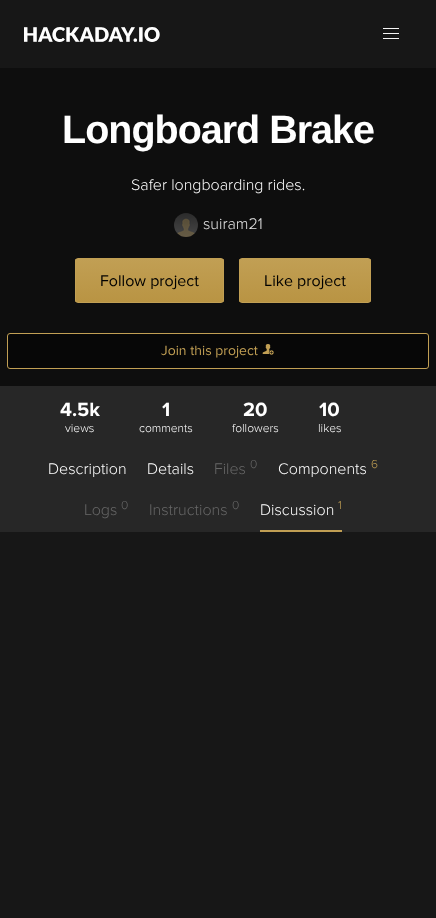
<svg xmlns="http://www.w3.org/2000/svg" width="436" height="918">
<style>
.a{font:bold 39.5px Liberation Sans;letter-spacing:-1px;fill:#fff}
.b{font:300 16px Proxima Nova;fill:#fff}
.c{font:300 16px Proxima Nova;fill:#e6e6e6}
.d{font:16px Proxima Nova;fill:#000}
.e{font:14px Proxima Nova;fill:#c19f54}
.f{font:bold 20px Proxima Nova;fill:#fff}
.g{font:300 12px Proxima Nova;fill:#fff}
.h{font:300 16px Proxima Nova;fill:#676767}
.i{font:300 12px Proxima Nova;fill:#676767}
.j{font:300 12px Proxima Nova;fill:#c19f54}
</style>
<defs>
<clipPath id="clip1"><rect x="75" y="258" width="149" height="45" rx="3"/></clipPath>
<linearGradient id="g1" gradientUnits="userSpaceOnUse" x1="150" y1="259" x2="150" y2="302"><stop offset="0" stop-color="#c19f54"/><stop offset="1" stop-color="#b99443"/></linearGradient>
<clipPath id="clip2"><rect x="239" y="258" width="132" height="45" rx="3"/></clipPath>
<linearGradient id="g2" gradientUnits="userSpaceOnUse" x1="305" y1="259" x2="305" y2="302"><stop offset="0" stop-color="#c19f54"/><stop offset="1" stop-color="#b99443"/></linearGradient>
</defs>
<rect width="100%" height="100%" fill="#171717"/>
<image href="1.png" x="24" y="27" width="136" height="15"/>
<path fill="#f5f5f5" d="M383 28h16v1H383z"/>
<path fill="#f5f5f5" d="M383 33h16v1H383z"/>
<path fill="#f5f5f5" d="M383 38h16v1H383z"/>
<path fill="#0e0e0e" d="M0 68h436v318H0z"/>
<image href="2.png" x="174" y="213" width="24" height="24"/>
<g clip-path="url(#clip1)">
<path fill="url(#g1)" d="M75 259h149v43H75z"/>
</g>
<rect fill="none" stroke="#c19f54" x="75.5" y="258.5" width="148" height="44" rx="2.5"/>
<g clip-path="url(#clip2)">
<path fill="url(#g2)" d="M239 259h132v43H239z"/>
</g>
<rect fill="none" stroke="#c19f54" x="239.5" y="258.5" width="131" height="44" rx="2.5"/>
<rect fill="#070707" stroke="#c19f54" x="7.5" y="333.5" width="421" height="35" rx="2.5"/>
<image href="3.png" x="262" y="344" width="12" height="11"/>
<path fill="#272727" d="M0 386h436v146H0z"/>
<path fill="#c19f54" d="M260 530h82v2H260z"/>
<text class="a" x="62" y="143">Longboard Brake</text>
<text class="b" x="131" y="190">Safer longboarding rides.</text>
<text class="c" x="203" y="229">suiram21</text>
<text class="d" x="100" y="286">Follow project</text>
<text class="d" x="264" y="286">Like project</text>
<text class="e" x="161" y="355">Join this project</text>
<text class="f" x="60" y="416">4.5k</text>
<text class="g" x="65" y="432">views</text>
<text class="f" x="162" y="416">1</text>
<text class="g" x="139" y="432">comments</text>
<text class="f" x="243" y="416">20</text>
<text class="g" x="232" y="432">followers</text>
<text class="f" x="319" y="416">10</text>
<text class="g" x="318" y="432">likes</text>
<text class="b" x="48" y="474">Description</text>
<text class="b" x="147" y="474">Details</text>
<text class="h" x="214" y="474">Files</text>
<text class="i" x="250" y="468">0</text>
<text class="b" x="278" y="474">Components</text>
<text class="j" x="371" y="468">6</text>
<text class="h" x="84" y="515">Logs</text>
<text class="i" x="121" y="509">0</text>
<text class="h" x="149" y="515">Instructions</text>
<text class="i" x="232" y="509">0</text>
<text class="b" x="260" y="515">Discussion</text>
<text class="j" x="338" y="509">1</text>
</svg>
